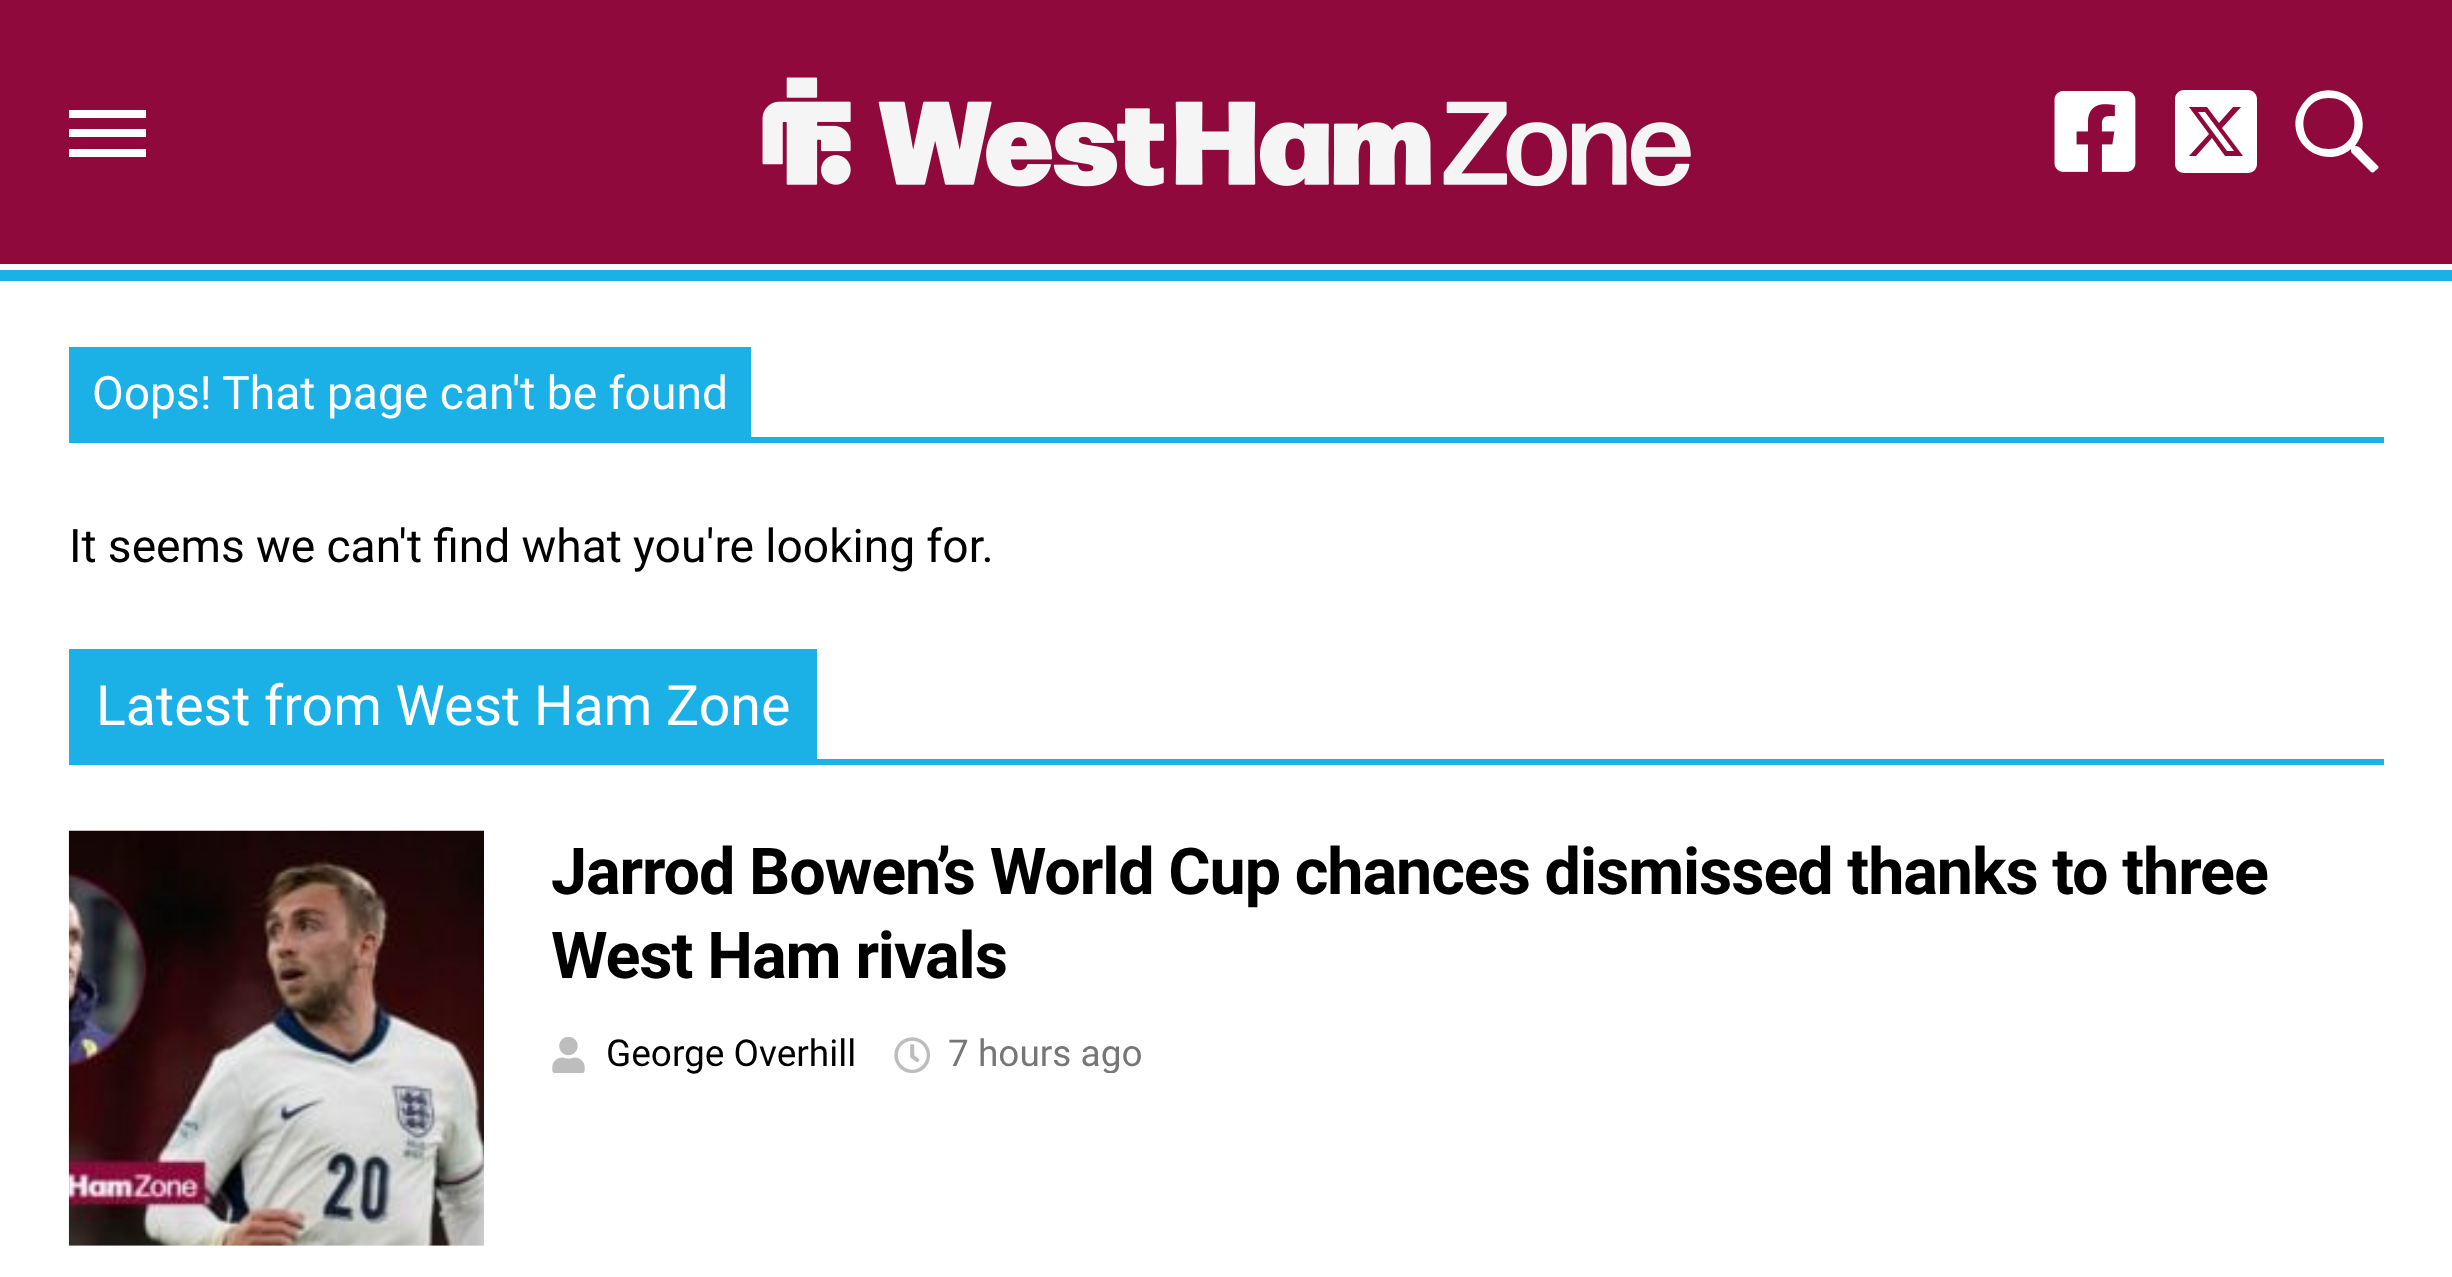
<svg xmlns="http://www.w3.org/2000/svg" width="2452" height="1277">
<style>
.a{font:46.2px Roboto;fill:#fff}
.b{font:46.2px Roboto;fill:#000}
.c{font:55.5px Roboto;fill:#fff}
.d{font:bold 64.7px Roboto;letter-spacing:-1.1px;fill:#000}
.e{font:37px Roboto;fill:#000}
.f{font:37px Roboto;fill:#767676}
</style>
<defs>
<clipPath id="clip1"><path d="M949 1037h192v36H949z"/></clipPath>
</defs>
<rect width="100%" height="100%" fill="#90093d"/>
<path fill="#1bb1e7" d="M0 270h2452v11H0z"/>
<path fill="#fff" d="M69 110h77v8H69z"/>
<path fill="#fff" d="M69 129h77v8H69z"/>
<path fill="#fff" d="M69 149h77v8H69z"/>
<image href="1.png" x="762" y="77" width="929" height="110"/>
<image href="2.png" x="2054" y="91" width="82" height="81"/>
<path fill="#fff" fill-rule="evenodd" d="M2248 90c5 0 9 4 9 9v65c0 5-4 9-9 9h-64c-5 0-9-4-9-9v-65c0-5 4-9 9-9zm-41 17h-18l20 27l-20 22h7l16-18l13 18h18l-21-28l19-21h-8l-14 16zm-2 5l29 39h-7l-29-39z"/>
<path fill="#fff" d="M2378 166l-13-13c-5-5-5-7-10-7c20-24-1-61-33-55c-6 1-12 4-16 9c-5 5-8 11-10 17c-6 32 32 52 55 32c0 4 0 3 4 7l13 13c3 3 4 5 7 2c1-1 5-3 3-5m-49-17c-34 0-34-51 0-51c34 0 34 51 0 51"/>
<path fill="#fff" d="M0 264h2452v6H0z"/>
<path fill="#fff" d="M0 281h2452v996H0z"/>
<path fill="#1bb1e7" d="M69 347h682v96H69z"/>
<path fill="#1bb1e7" d="M751 437h1633v6H751z"/>
<path fill="#1bb1e7" d="M69 649h748v116H69z"/>
<path fill="#1bb1e7" d="M817 759h1567v6H817z"/>
<path fill="#f1f1f1" d="M69 1245h415v1H69z"/>
<image href="3.png" x="68" y="830" width="416" height="416"/>
<image href="4.png" x="552" y="1037" width="33" height="36"/>
<image href="5.png" x="894" y="1037" width="36" height="36"/>
<text class="a" x="92" y="409">Oops! That page can't be found</text>
<text class="b" x="69" y="562" word-spacing="-0.25">It seems we can't find what you're looking for.</text>
<text class="c" x="96" y="725">Latest from West Ham Zone</text>
<text class="d" x="551" y="894" word-spacing="-0.25">Jarrod Bowen’s World Cup chances dismissed thanks to three</text>
<text class="d" x="551" y="978">West Ham rivals</text>
<text class="e" x="606" y="1066">George Overhill</text>
<g clip-path="url(#clip1)">
<text class="f" x="948" y="1066">7 hours ago</text>
</g>
</svg>
